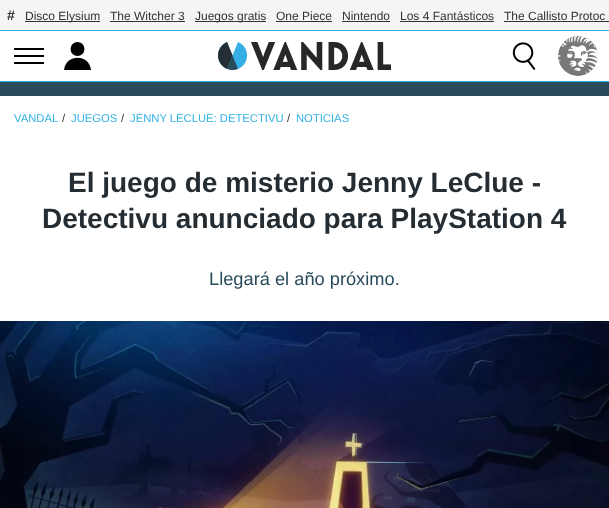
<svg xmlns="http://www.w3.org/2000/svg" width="609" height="508">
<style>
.a{font:bold 14px Liberation Sans;fill:#333}
.b{font:12px Liberation Sans;fill:#333}
.c{font:11.25px Liberation Sans;fill:#30b0e5}
.d{font:11.25px Liberation Sans;fill:#333}
.e{font:bold 28px Liberation Sans;fill:#252d33}
.f{font:18.25px Liberation Sans;fill:#284b5b}
</style>
<rect width="100%" height="100%" fill="#284b5b"/>
<path fill="#f5f5f5" d="M0 0h609v30H0z"/>
<path fill="#30b0e5" d="M0 30h609v1H0z"/>
<path fill="#333" d="M25 21h75v1H25z"/>
<path fill="#333" d="M110 21h75v1H110z"/>
<path fill="#333" d="M195 21h71v1H195z"/>
<path fill="#333" d="M276 21h56v1H276z"/>
<path fill="#333" d="M342 21h48v1H342z"/>
<path fill="#333" d="M400 21h94v1H400z"/>
<path fill="#333" d="M504 21h105v1H504z"/>
<path fill="#fff" d="M0 31h609v50H0z"/>
<path fill="#30b0e5" d="M0 81h609v1H0z"/>
<path fill="#000" d="M14 48h30v2H14z"/>
<path fill="#000" d="M14 55h30v2H14z"/>
<path fill="#000" d="M14 62h30v2H14z"/>
<circle fill="#000" cx="77.5" cy="49" r="7"/>
<path fill="#000" d="M91 70c-1.5-16.5-25.5-16.5-27 0z"/>
<image href="1.png" x="218" y="42" width="173" height="28"/>
<image href="2.png" x="512" y="42" width="24" height="28"/>
<image href="3.png" x="558" y="36" width="40" height="40"/>
<path fill="#fff" d="M0 96h609v225H0z"/>
<image href="4.png" x="0" y="321" width="609" height="187"/>
<text class="a" x="7" y="20">#</text>
<text class="b" x="25" y="20">Disco Elysium</text>
<text class="b" x="110" y="20">The Witcher 3</text>
<text class="b" x="195" y="20">Juegos gratis</text>
<text class="b" x="276" y="20">One Piece</text>
<text class="b" x="342" y="20">Nintendo</text>
<text class="b" x="400" y="20">Los 4 Fantásticos</text>
<text class="b" x="504" y="20">The Callisto Protoc</text>
<text class="c" x="14" y="122">VANDAL</text>
<text class="d" x="62" y="122">/</text>
<text class="c" x="71" y="122">JUEGOS</text>
<text class="d" x="121" y="122">/</text>
<text class="c" x="130" y="122">JENNY LECLUE: DETECTIVU</text>
<text class="d" x="287" y="122">/</text>
<text class="c" x="296" y="122">NOTICIAS</text>
<text class="e" x="68" y="192">El juego de misterio Jenny LeClue -</text>
<text class="e" x="42" y="228">Detectivu anunciado para PlayStation 4</text>
<text class="f" x="209" y="285">Llegará el año próximo.</text>
</svg>
